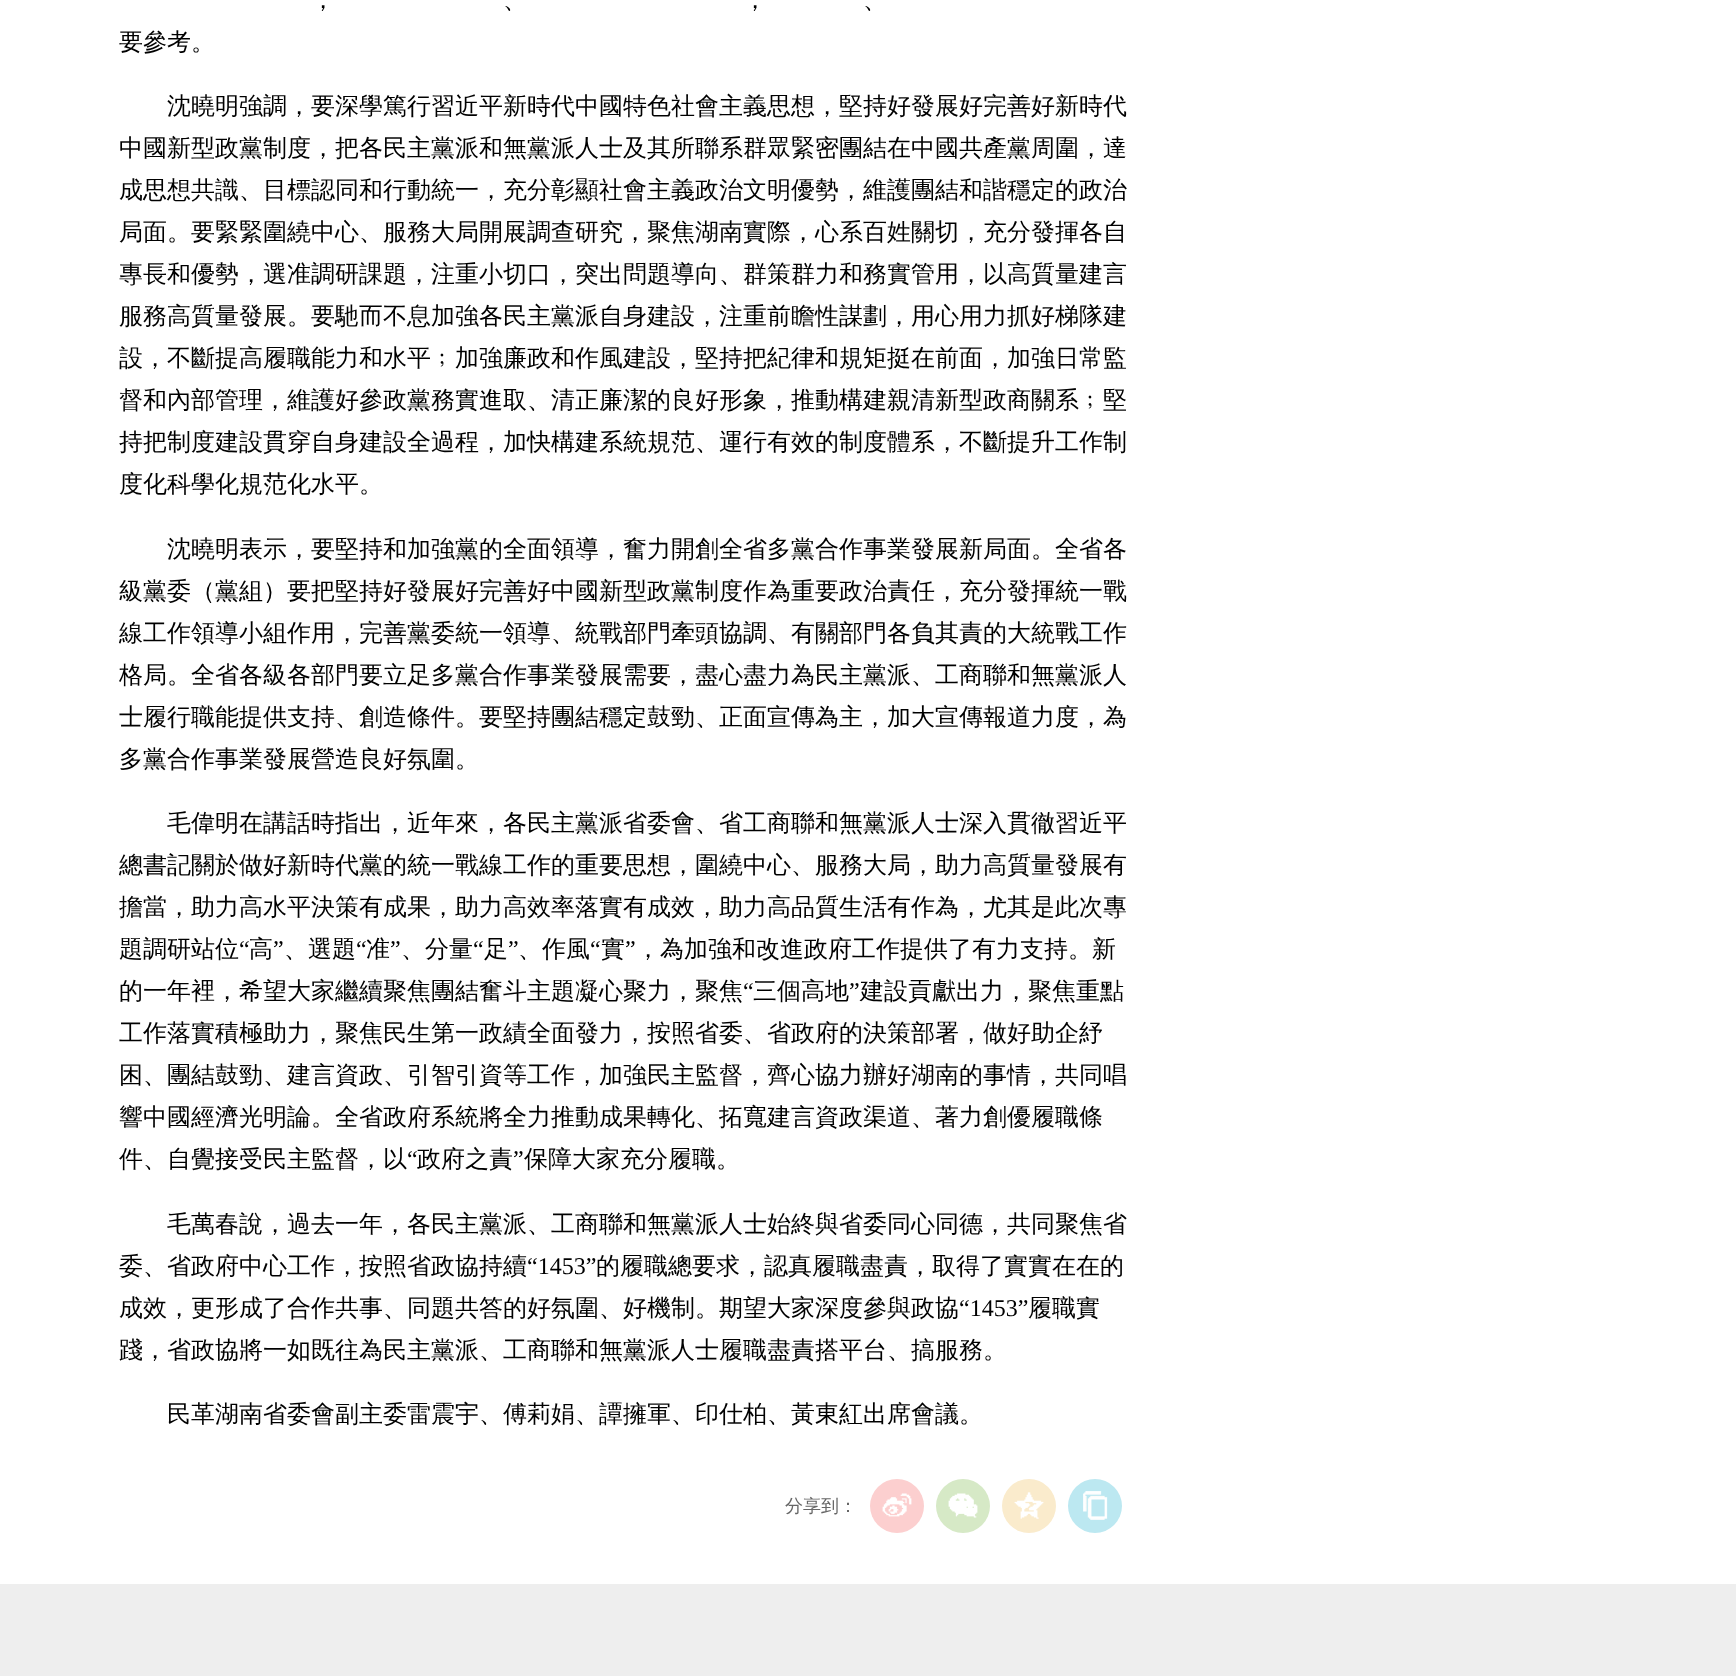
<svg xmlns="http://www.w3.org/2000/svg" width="1736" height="1676">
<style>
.a{font:500 24px WenQuanYi Zen Hei;fill:#000}
.b{font:24px Liberation Serif;fill:#000}
.c{font:500 18px WenQuanYi Zen Hei;fill:#666}
</style>
<rect width="100%" height="100%" fill="#fff"/>
<circle fill="#fccfcf" cx="897" cy="1506" r="27"/>
<image href="1.png" x="882" y="1493" width="30" height="24"/>
<circle fill="#d6e9c6" cx="963" cy="1506" r="27"/>
<image href="2.png" x="948" y="1493" width="30" height="25"/>
<circle fill="#faebcc" cx="1029" cy="1506" r="27"/>
<image href="3.png" x="1014" y="1492" width="30" height="27"/>
<circle fill="#bce8f1" cx="1095" cy="1506" r="27"/>
<image href="4.png" x="1083" y="1491" width="25" height="29"/>
<path fill="#eee" d="M0 1584h1736v92H0z"/>
<text class="a" x="311" y="8">，</text>
<text class="a" x="503" y="8">、</text>
<text class="a" x="743" y="8">，</text>
<text class="a" x="863" y="8">、</text>
<text class="a" x="119" y="50">要參考。</text>
<text class="a" x="167" y="114">沈曉明強調，要深學篤行習近平新時代中國特色社會主義思想，堅持好發展好完善好新時代</text>
<text class="a" x="119" y="156">中國新型政黨制度，把各民主黨派和無黨派人士及其所聯系群眾緊密團結在中國共產黨周圍，達</text>
<text class="a" x="119" y="198">成思想共識、目標認同和行動統一，充分彰顯社會主義政治文明優勢，維護團結和諧穩定的政治</text>
<text class="a" x="119" y="240">局面。要緊緊圍繞中心、服務大局開展調查研究，聚焦湖南實際，心系百姓關切，充分發揮各自</text>
<text class="a" x="119" y="282">專長和優勢，選准調研課題，注重小切口，突出問題導向、群策群力和務實管用，以高質量建言</text>
<text class="a" x="119" y="324">服務高質量發展。要馳而不息加強各民主黨派自身建設，注重前瞻性謀劃，用心用力抓好梯隊建</text>
<text class="a" x="119" y="366">設，不斷提高履職能力和水平﹔加強廉政和作風建設，堅持把紀律和規矩挺在前面，加強日常監</text>
<text class="a" x="119" y="408">督和內部管理，維護好參政黨務實進取、清正廉潔的良好形象，推動構建親清新型政商關系﹔堅</text>
<text class="a" x="119" y="450">持把制度建設貫穿自身建設全過程，加快構建系統規范、運行有效的制度體系，不斷提升工作制</text>
<text class="a" x="119" y="492">度化科學化規范化水平。</text>
<text class="a" x="167" y="557">沈曉明表示，要堅持和加強黨的全面領導，奮力開創全省多黨合作事業發展新局面。全省各</text>
<text class="a" x="119" y="599">級黨委（黨組）要把堅持好發展好完善好中國新型政黨制度作為重要政治責任，充分發揮統一戰</text>
<text class="a" x="119" y="641">線工作領導小組作用，完善黨委統一領導、統戰部門牽頭協調、有關部門各負其責的大統戰工作</text>
<text class="a" x="119" y="683">格局。全省各級各部門要立足多黨合作事業發展需要，盡心盡力為民主黨派、工商聯和無黨派人</text>
<text class="a" x="119" y="725">士履行職能提供支持、創造條件。要堅持團結穩定鼓勁、正面宣傳為主，加大宣傳報道力度，為</text>
<text class="a" x="119" y="767">多黨合作事業發展營造良好氛圍。</text>
<text class="a" x="167" y="831">毛偉明在講話時指出，近年來，各民主黨派省委會、省工商聯和無黨派人士深入貫徹習近平</text>
<text class="a" x="119" y="873">總書記關於做好新時代黨的統一戰線工作的重要思想，圍繞中心、服務大局，助力高質量發展有</text>
<text class="a" x="119" y="915">擔當，助力高水平決策有成果，助力高效率落實有成效，助力高品質生活有作為，尤其是此次專</text>
<text class="a" x="119" y="957">題調研站位</text>
<text class="b" x="239" y="957">“</text>
<text class="a" x="249" y="957">高</text>
<text class="b" x="273" y="957">”</text>
<text class="a" x="284" y="957">、選題</text>
<text class="b" x="356" y="957">“</text>
<text class="a" x="366" y="957">准</text>
<text class="b" x="390" y="957">”</text>
<text class="a" x="401" y="957">、分量</text>
<text class="b" x="473" y="957">“</text>
<text class="a" x="484" y="957">足</text>
<text class="b" x="508" y="957">”</text>
<text class="a" x="518" y="957">、作風</text>
<text class="b" x="590" y="957">“</text>
<text class="a" x="601" y="957">實</text>
<text class="b" x="625" y="957">”</text>
<text class="a" x="636" y="957">，為加強和改進政府工作提供了有力支持。新</text>
<text class="a" x="119" y="999">的一年裡，希望大家繼續聚焦團結奮斗主題凝心聚力，聚焦</text>
<text class="b" x="743" y="999">“</text>
<text class="a" x="753" y="999">三個高地</text>
<text class="b" x="849" y="999">”</text>
<text class="a" x="860" y="999">建設貢獻出力，聚焦重點</text>
<text class="a" x="119" y="1041">工作落實積極助力，聚焦民生第一政績全面發力，按照省委、省政府的決策部署，做好助企紓</text>
<text class="a" x="119" y="1083">困、團結鼓勁、建言資政、引智引資等工作，加強民主監督，齊心協力辦好湖南的事情，共同唱</text>
<text class="a" x="119" y="1125">響中國經濟光明論。全省政府系統將全力推動成果轉化、拓寬建言資政渠道、著力創優履職條</text>
<text class="a" x="119" y="1167">件、自覺接受民主監督，以</text>
<text class="b" x="407" y="1167">“</text>
<text class="a" x="417" y="1167">政府之責</text>
<text class="b" x="513" y="1167">”</text>
<text class="a" x="524" y="1167">保障大家充分履職。</text>
<text class="a" x="167" y="1232">毛萬春說，過去一年，各民主黨派、工商聯和無黨派人士始終與省委同心同德，共同聚焦省</text>
<text class="a" x="119" y="1274">委、省政府中心工作，按照省政協持續</text>
<text class="b" x="527" y="1274">“1453”</text>
<text class="a" x="596" y="1274">的履職總要求，認真履職盡責，取得了實實在在的</text>
<text class="a" x="119" y="1316">成效，更形成了合作共事、同題共答的好氛圍、好機制。期望大家深度參與政協</text>
<text class="b" x="959" y="1316">“1453”</text>
<text class="a" x="1028" y="1316">履職實</text>
<text class="a" x="119" y="1358">踐，省政協將一如既往為民主黨派、工商聯和無黨派人士履職盡責搭平台、搞服務。</text>
<text class="a" x="167" y="1422">民革湖南省委會副主委雷震宇、傅莉娟、譚擁軍、印仕柏、黃東紅出席會議。</text>
<text class="c" x="785" y="1512">分享到：</text>
</svg>
